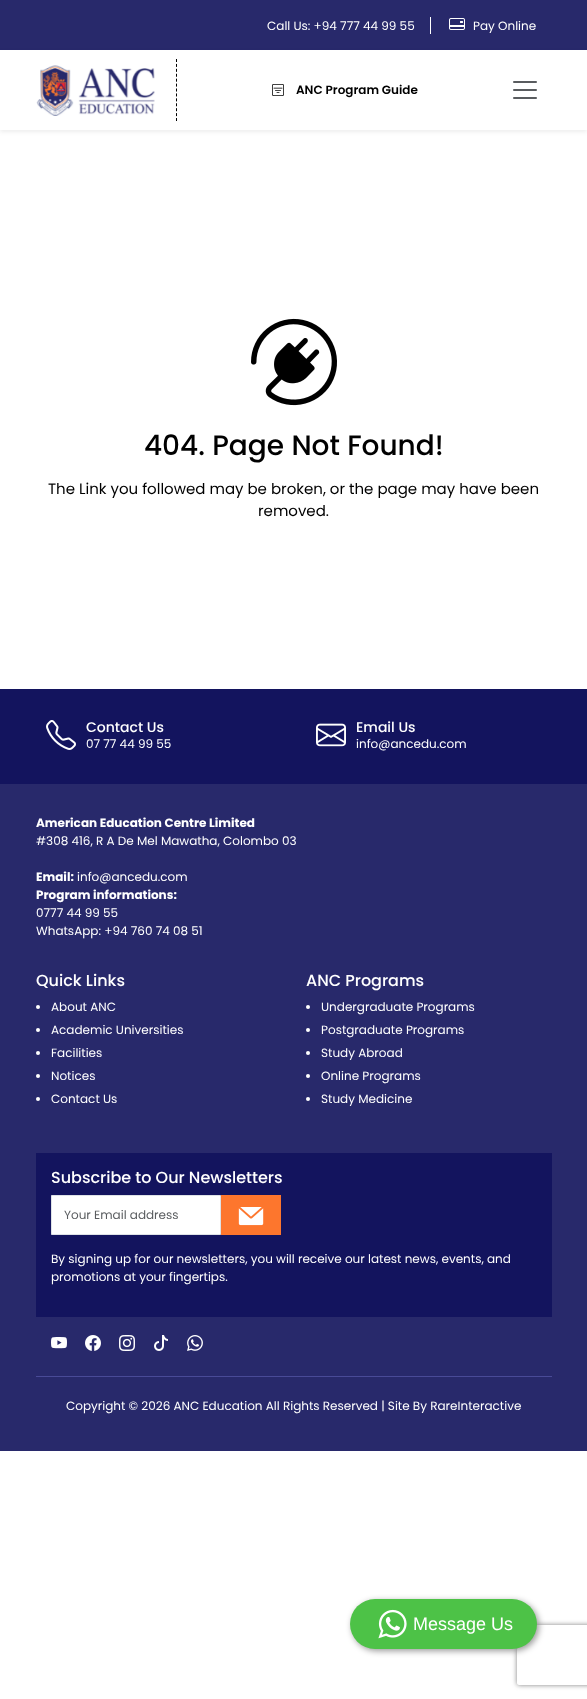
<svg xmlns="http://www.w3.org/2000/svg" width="587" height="1699">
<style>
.a{font:12px Poppins;fill:#fff}
.b{font:600 12px Poppins;fill:#000}
.c{font:500 28px Poppins;fill:#000}
.d{font:15px Poppins;fill:#000}
.e{font:500 14px Poppins;fill:#fff}
.f{font:bold 12px Poppins;fill:#fff}
.g{font:500 16px Poppins;fill:#fff}
.h{font:12px Poppins;fill:#595c5f}
.i{font:18px Liberation Sans;fill:#fff}
</style>
<defs>
<clipPath id="clip1"><path d="M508 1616h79v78h-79zm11 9h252c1 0 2 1 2 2v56c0 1-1 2-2 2h-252c-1 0-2-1-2-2v-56c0-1 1-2 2-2z" clip-rule="evenodd"/></clipPath>
</defs>
<rect width="100%" height="100%" fill="#fff"/>
<path fill="#28296b" d="M0 0h587v50H0z"/>
<path fill="#fff" d="M430 17h1v17H430z"/>
<image href="1.png" x="449" y="18" width="16" height="12"/>
<path fill="#00000012" filter="blur(2px)" d="M0 52h587v80H0z"/>
<path fill="#fff" d="M0 50h587v80H0z"/>
<path fill="none" stroke="#000" stroke-dasharray="3 1.92" d="M176.5 59v62"/>
<image href="2.png" x="36" y="65" width="119" height="51"/>
<image href="3.png" x="272" y="84" width="12" height="12"/>
<image href="4.png" x="513" y="81" width="24" height="18"/>
<image href="5.png" x="251" y="318" width="86" height="88"/>
<path fill="#13145e" d="M0 689h587v95H0z"/>
<image href="6.png" x="46" y="720" width="30" height="30"/>
<image href="7.png" x="316" y="723" width="30" height="24"/>
<path fill="#28296b" d="M0 784h587v667H0z"/>
<circle fill="#fff" cx="38" cy="1007" r="2"/>
<circle fill="#fff" cx="38" cy="1030" r="2"/>
<circle fill="#fff" cx="38" cy="1053" r="2"/>
<circle fill="#fff" cx="38" cy="1076" r="2"/>
<circle fill="#fff" cx="38" cy="1099" r="2"/>
<circle fill="#fff" cx="308" cy="1007" r="2"/>
<circle fill="#fff" cx="308" cy="1030" r="2"/>
<circle fill="#fff" cx="308" cy="1053" r="2"/>
<circle fill="#fff" cx="308" cy="1076" r="2"/>
<circle fill="#fff" cx="308" cy="1099" r="2"/>
<path fill="#13145e" d="M36 1153h516v164H36z"/>
<path fill="#fff" stroke="#dee2e6" d="M51.5 1195.5h169v39H51.5z"/>
<path fill="#fd762d" d="M221 1195h60v40H221z"/>
<image href="8.png" x="238" y="1207" width="26" height="19"/>
<image href="9.png" x="51" y="1337" width="16" height="12"/>
<image href="10.png" x="85" y="1335" width="16" height="16"/>
<image href="11.png" x="119" y="1335" width="16" height="16"/>
<image href="12.png" x="154" y="1335" width="14" height="16"/>
<image href="13.png" x="187" y="1335" width="16" height="16"/>
<path fill="#494a97" d="M36 1376h516v1H36z"/>
<rect fill="#00000066" filter="blur(3px)" x="352" y="1601" width="187" height="50" rx="25"/>
<g clip-path="url(#clip1)">
<rect fill="#808080" filter="blur(2.5px)" x="517" y="1625" width="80" height="60" rx="2"/>
</g>
<rect fill="#4dc247" x="350" y="1599" width="187" height="50" rx="25"/>
<image href="14.png" x="378" y="1609" width="29" height="30"/>
<text class="a" x="267" y="30">Call Us: +94 777 44 99 55</text>
<text class="a" x="473" y="30">Pay Online</text>
<text class="b" x="296" y="94">ANC Program Guide</text>
<text class="c" x="144" y="455">404. Page Not Found!</text>
<text class="d" x="48" y="494">The Link you followed may be broken, or the page may have been</text>
<text class="d" x="258" y="516">removed.</text>
<text class="e" x="86" y="732">Contact Us</text>
<text class="a" x="86" y="748">07 77 44 99 55</text>
<text class="e" x="356" y="732">Email Us</text>
<text class="a" x="356" y="748">info@ancedu.com</text>
<text class="f" x="36" y="827">American Education Centre Limited</text>
<text class="a" x="36" y="845">#308 416, R A De Mel Mawatha, Colombo 03</text>
<text class="f" x="36" y="881">Email:</text>
<text class="a" x="77" y="881">info@ancedu.com</text>
<text class="f" x="36" y="899">Program informations:</text>
<text class="a" x="36" y="917">0777 44 99 55</text>
<text class="a" x="36" y="935">WhatsApp: +94 760 74 08 51</text>
<text class="g" x="36" y="986">Quick Links</text>
<text class="a" x="51" y="1011">About ANC</text>
<text class="a" x="51" y="1034">Academic Universities</text>
<text class="a" x="51" y="1057">Facilities</text>
<text class="a" x="51" y="1080">Notices</text>
<text class="a" x="51" y="1103">Contact Us</text>
<text class="g" x="306" y="986">ANC Programs</text>
<text class="a" x="321" y="1011">Undergraduate Programs</text>
<text class="a" x="321" y="1034">Postgraduate Programs</text>
<text class="a" x="321" y="1057">Study Abroad</text>
<text class="a" x="321" y="1080">Online Programs</text>
<text class="a" x="321" y="1103">Study Medicine</text>
<text class="g" x="51" y="1183">Subscribe to Our Newsletters</text>
<text class="h" x="64" y="1219">Your Email address</text>
<text class="a" x="51" y="1263">By signing up for our newsletters, you will receive our latest news, events, and</text>
<text class="a" x="51" y="1281">promotions at your fingertips.</text>
<text class="a" x="66" y="1410">Copyright © 2026 ANC Education All Rights Reserved | Site By RareInteractive</text>
<text class="i" x="413" y="1630">Message Us</text>
</svg>
